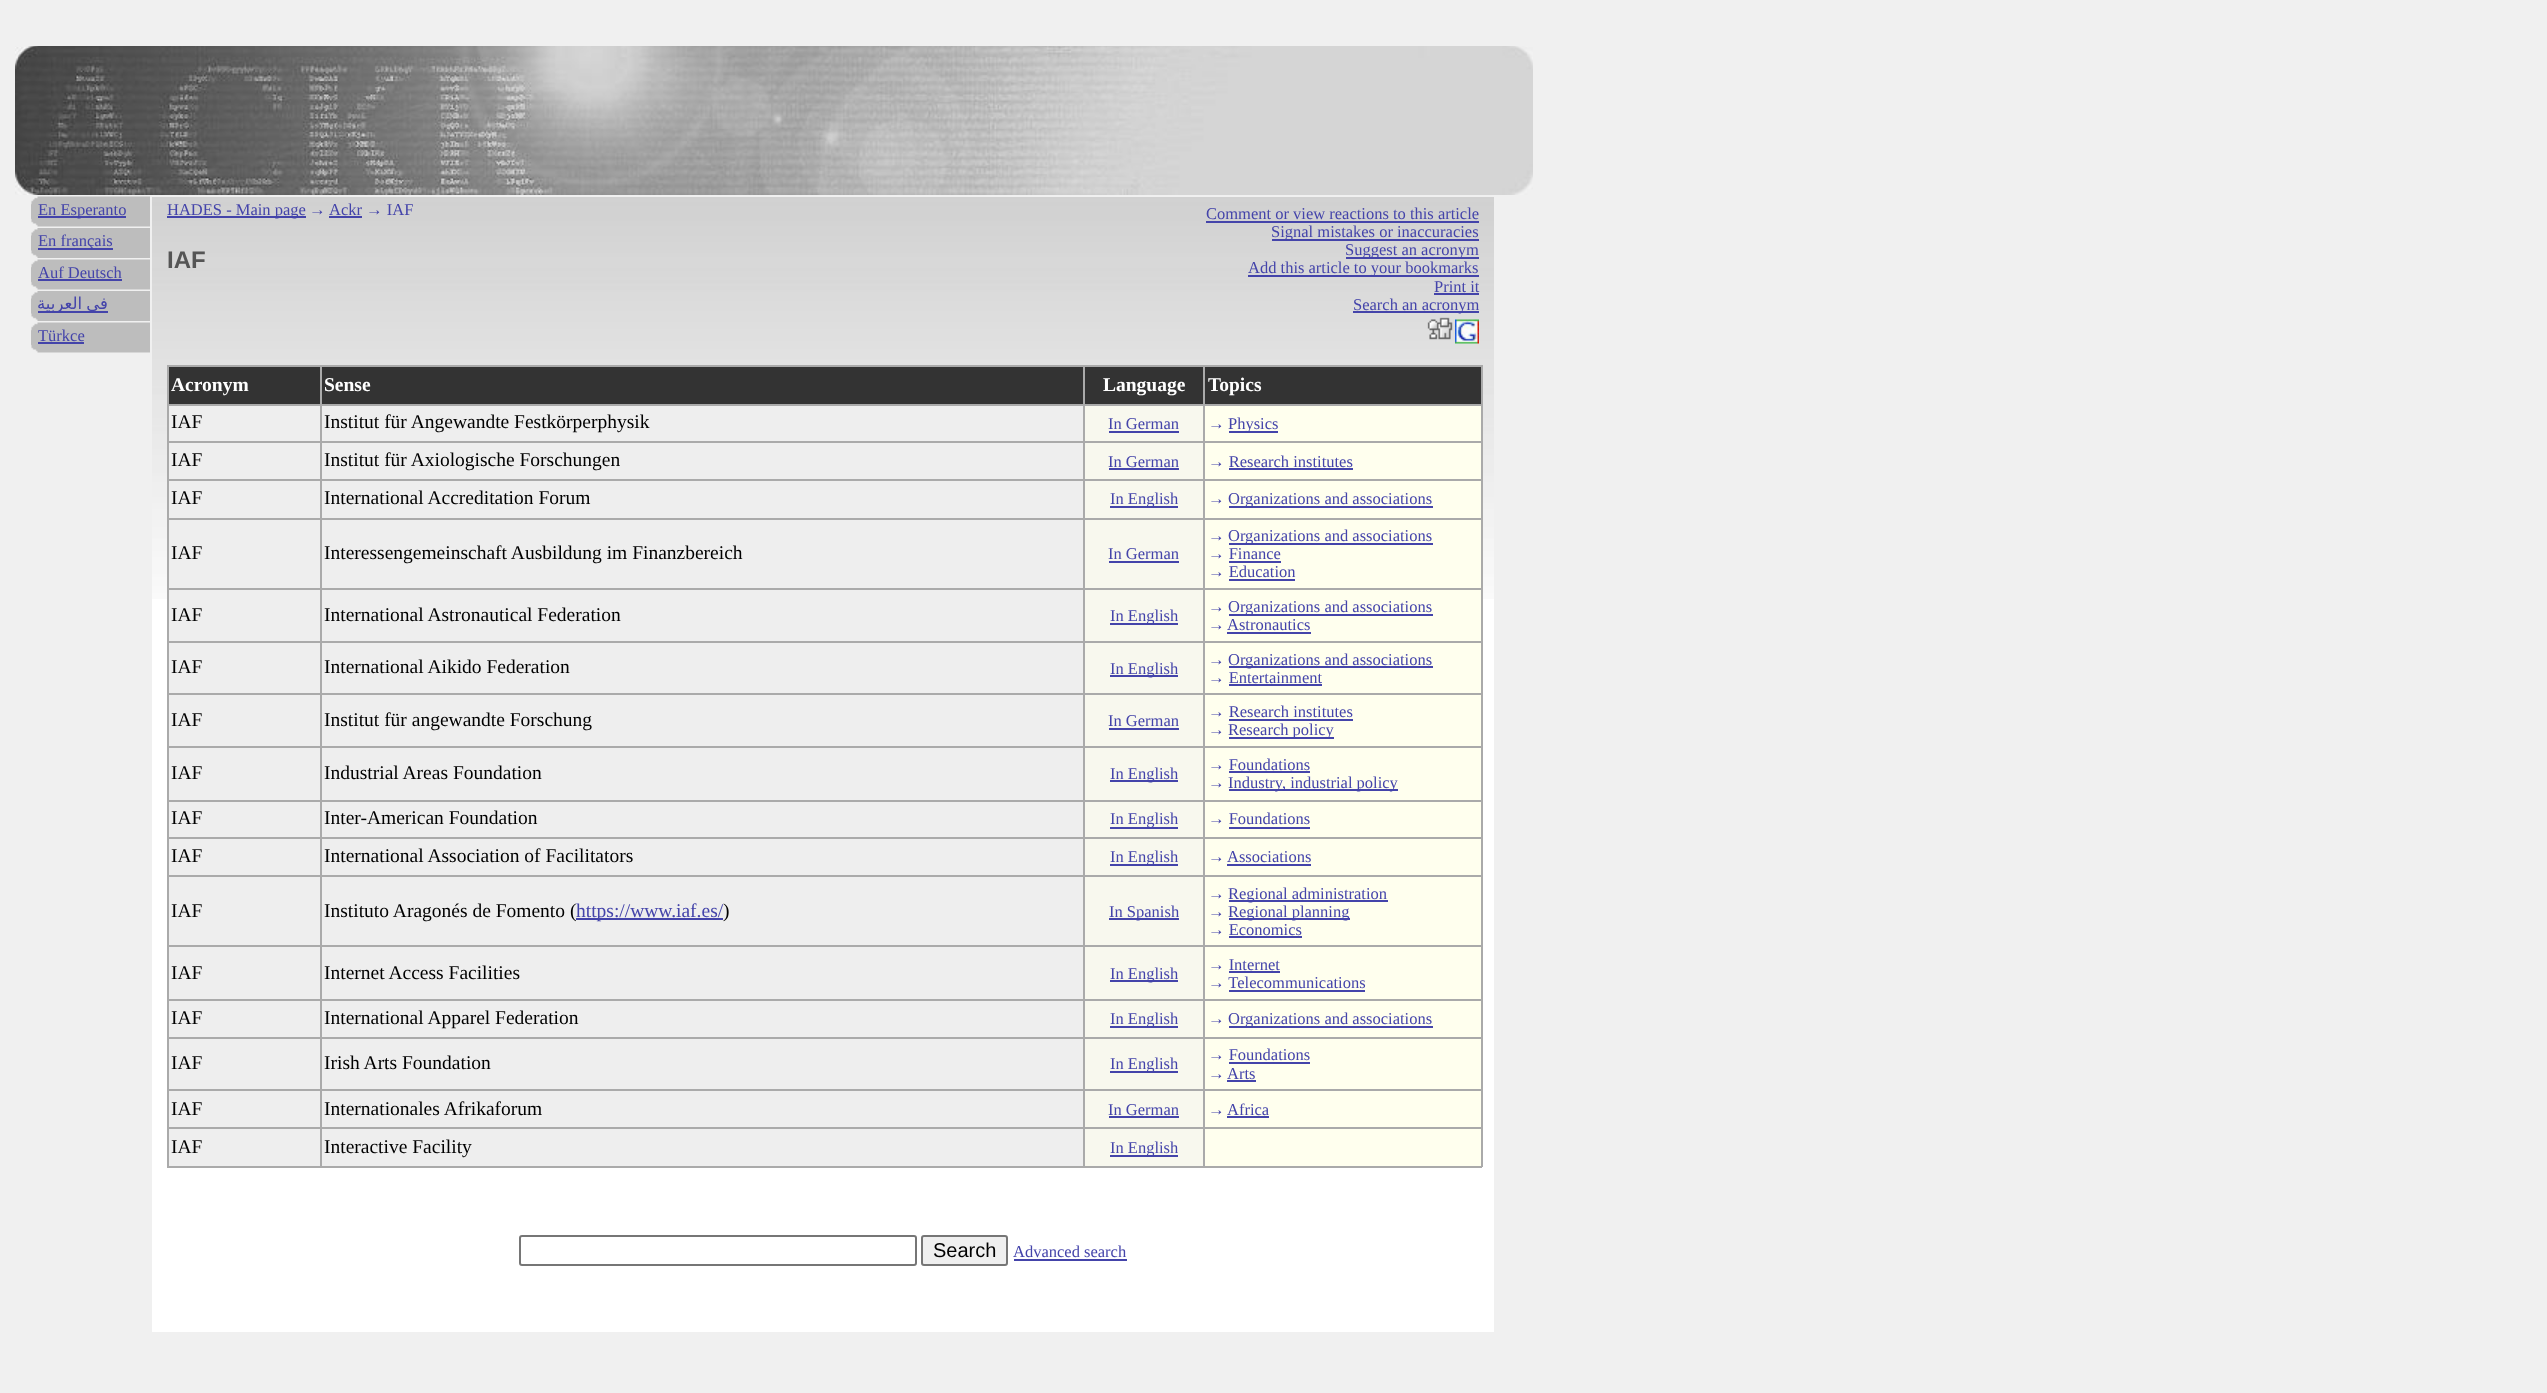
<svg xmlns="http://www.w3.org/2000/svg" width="2547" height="1393">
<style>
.a{font:16.5px Liberation Serif;fill:#44a}
.b{font:16.5px DejaVu Sans;direction:rtl;fill:#44a}
.c{font:bold 24px Liberation Sans;fill:#555}
.d{font:bold 19.5px Liberation Serif;fill:#fff}
.e{font:19.5px Liberation Serif;fill:#000}
.f{font:19.5px Liberation Serif;fill:#44a}
.g{font:20px Liberation Sans;fill:#000}
</style>
<rect width="100%" height="100%" fill="#f0f0f0"/>
<image href="1.png" x="15" y="46" width="1518" height="149"/>
<image href="2.png" x="31" y="196" width="119" height="31"/>
<path fill="#44a" d="M38 216h88v2H38z"/>
<image href="3.png" x="31" y="228" width="119" height="30"/>
<path fill="#44a" d="M38 248h75v2H38z"/>
<image href="2.png" x="31" y="259" width="119" height="31"/>
<path fill="#44a" d="M38 279h84v2H38z"/>
<image href="3.png" x="31" y="291" width="119" height="30"/>
<path fill="#44a" d="M38 311h70v2H38z"/>
<image href="2.png" x="31" y="322" width="119" height="31"/>
<path fill="#44a" d="M38 342h46v2H38z"/>
<path fill="#fff" d="M152 599h1342v733H152z"/>
<image href="4.png" x="152" y="197" width="1342" height="402"/>
<path fill="#44a" d="M167 216h139v2H167z"/>
<path fill="#44a" d="M329 216h33v2H329z"/>
<path fill="#44a" d="M1206 221h273v2H1206z"/>
<path fill="#44a" d="M1272 239h207v2H1272z"/>
<path fill="#44a" d="M1346 257h133v2H1346z"/>
<path fill="#44a" d="M1248 275h231v2H1248z"/>
<path fill="#44a" d="M1434 293h45v2H1434z"/>
<path fill="#44a" d="M1353 311h126v2H1353z"/>
<image href="5.png" x="1427" y="317" width="26" height="23"/>
<image href="6.png" x="1455" y="319" width="24" height="25"/>
<path fill="#eee" d="M169 406h914v760H169z"/>
<path fill="#333" d="M169 367h151v37H169z"/>
<path fill="#aaa" d="M1203 365h279v2H1203z"/>
<path fill="#aaa" d="M1203 404h279v2H1203z"/>
<path fill="#aaa" d="M1203 441h279v2H1203z"/>
<path fill="#aaa" d="M1203 479h279v2H1203z"/>
<path fill="#aaa" d="M1203 518h279v2H1203z"/>
<path fill="#aaa" d="M1203 588h279v2H1203z"/>
<path fill="#aaa" d="M1203 641h279v2H1203z"/>
<path fill="#aaa" d="M1203 693h279v2H1203z"/>
<path fill="#aaa" d="M1203 746h279v2H1203z"/>
<path fill="#aaa" d="M1203 800h279v2H1203z"/>
<path fill="#aaa" d="M1203 837h279v2H1203z"/>
<path fill="#aaa" d="M1203 875h279v2H1203z"/>
<path fill="#aaa" d="M1203 945h279v2H1203z"/>
<path fill="#aaa" d="M1203 999h279v2H1203z"/>
<path fill="#aaa" d="M1203 1037h279v2H1203z"/>
<path fill="#aaa" d="M1203 1089h279v2H1203z"/>
<path fill="#aaa" d="M1203 1127h279v2H1203z"/>
<path fill="#aaa" d="M1481 1127h2v40H1481z"/>
<path fill="#aaa" d="M1203 1166h279v2H1203z"/>
<path fill="#aaa" d="M1203 1127h2v40H1203z"/>
<path fill="#aaa" d="M1083 1127h122v2H1083z"/>
<path fill="#aaa" d="M1203 1089h2v39H1203z"/>
<path fill="#aaa" d="M1083 1089h122v2H1083z"/>
<path fill="#aaa" d="M1203 1037h2v54H1203z"/>
<path fill="#aaa" d="M1083 1037h122v2H1083z"/>
<path fill="#aaa" d="M1203 999h2v39H1203z"/>
<path fill="#aaa" d="M1083 999h122v2H1083z"/>
<path fill="#aaa" d="M1203 945h2v56H1203z"/>
<path fill="#aaa" d="M1083 945h122v2H1083z"/>
<path fill="#aaa" d="M1203 875h2v72H1203z"/>
<path fill="#aaa" d="M1083 875h122v2H1083z"/>
<path fill="#aaa" d="M1203 837h2v39H1203z"/>
<path fill="#aaa" d="M1083 837h122v2H1083z"/>
<path fill="#aaa" d="M1203 800h2v39H1203z"/>
<path fill="#aaa" d="M1083 800h122v2H1083z"/>
<path fill="#aaa" d="M1203 746h2v55H1203z"/>
<path fill="#aaa" d="M1083 746h122v2H1083z"/>
<path fill="#aaa" d="M1203 693h2v54H1203z"/>
<path fill="#aaa" d="M1083 693h122v2H1083z"/>
<path fill="#aaa" d="M1203 641h2v54H1203z"/>
<path fill="#aaa" d="M1083 641h122v2H1083z"/>
<path fill="#aaa" d="M1203 588h2v54H1203z"/>
<path fill="#aaa" d="M1083 588h122v2H1083z"/>
<path fill="#aaa" d="M1203 518h2v72H1203z"/>
<path fill="#aaa" d="M1083 518h122v2H1083z"/>
<path fill="#aaa" d="M1203 479h2v40H1203z"/>
<path fill="#aaa" d="M1083 479h122v2H1083z"/>
<path fill="#aaa" d="M1203 441h2v39H1203z"/>
<path fill="#aaa" d="M1083 441h122v2H1083z"/>
<path fill="#aaa" d="M1203 404h2v39H1203z"/>
<path fill="#aaa" d="M1083 404h122v2H1083z"/>
<path fill="#aaa" d="M1203 365h2v40H1203z"/>
<path fill="#aaa" d="M1083 365h122v2H1083z"/>
<path fill="#aaa" d="M1083 1166h122v2H1083z"/>
<path fill="#aaa" d="M1083 1127h2v40H1083z"/>
<path fill="#aaa" d="M320 1127h765v2H320z"/>
<path fill="#aaa" d="M1083 1089h2v39H1083z"/>
<path fill="#aaa" d="M320 1089h765v2H320z"/>
<path fill="#aaa" d="M1083 1037h2v54H1083z"/>
<path fill="#aaa" d="M320 1037h765v2H320z"/>
<path fill="#aaa" d="M1083 999h2v39H1083z"/>
<path fill="#aaa" d="M320 999h765v2H320z"/>
<path fill="#aaa" d="M1083 945h2v56H1083z"/>
<path fill="#aaa" d="M320 945h765v2H320z"/>
<path fill="#aaa" d="M1083 875h2v72H1083z"/>
<path fill="#aaa" d="M320 875h765v2H320z"/>
<path fill="#aaa" d="M1083 837h2v39H1083z"/>
<path fill="#aaa" d="M320 837h765v2H320z"/>
<path fill="#aaa" d="M1083 800h2v39H1083z"/>
<path fill="#aaa" d="M320 800h765v2H320z"/>
<path fill="#aaa" d="M1083 746h2v55H1083z"/>
<path fill="#aaa" d="M320 746h765v2H320z"/>
<path fill="#aaa" d="M1083 693h2v54H1083z"/>
<path fill="#aaa" d="M320 693h765v2H320z"/>
<path fill="#aaa" d="M1083 641h2v54H1083z"/>
<path fill="#aaa" d="M320 641h765v2H320z"/>
<path fill="#aaa" d="M1083 588h2v54H1083z"/>
<path fill="#aaa" d="M320 588h765v2H320z"/>
<path fill="#aaa" d="M1083 518h2v72H1083z"/>
<path fill="#aaa" d="M320 518h765v2H320z"/>
<path fill="#aaa" d="M1083 479h2v40H1083z"/>
<path fill="#aaa" d="M320 479h765v2H320z"/>
<path fill="#aaa" d="M1083 441h2v39H1083z"/>
<path fill="#aaa" d="M320 441h765v2H320z"/>
<path fill="#aaa" d="M1083 404h2v39H1083z"/>
<path fill="#aaa" d="M320 404h765v2H320z"/>
<path fill="#aaa" d="M1083 365h2v40H1083z"/>
<path fill="#aaa" d="M320 365h765v2H320z"/>
<path fill="#aaa" d="M320 1166h765v2H320z"/>
<path fill="#aaa" d="M320 1127h2v40H320z"/>
<path fill="#aaa" d="M167 1127h154v2H167z"/>
<path fill="#aaa" d="M320 1089h2v39H320z"/>
<path fill="#aaa" d="M167 1089h154v2H167z"/>
<path fill="#aaa" d="M320 1037h2v54H320z"/>
<path fill="#aaa" d="M167 1037h154v2H167z"/>
<path fill="#aaa" d="M320 999h2v39H320z"/>
<path fill="#aaa" d="M167 999h154v2H167z"/>
<path fill="#aaa" d="M320 945h2v56H320z"/>
<path fill="#aaa" d="M167 945h154v2H167z"/>
<path fill="#aaa" d="M320 875h2v72H320z"/>
<path fill="#aaa" d="M167 875h154v2H167z"/>
<path fill="#aaa" d="M320 837h2v39H320z"/>
<path fill="#aaa" d="M167 837h154v2H167z"/>
<path fill="#aaa" d="M320 800h2v39H320z"/>
<path fill="#aaa" d="M167 800h154v2H167z"/>
<path fill="#aaa" d="M320 746h2v55H320z"/>
<path fill="#aaa" d="M167 746h154v2H167z"/>
<path fill="#aaa" d="M320 693h2v54H320z"/>
<path fill="#aaa" d="M167 693h154v2H167z"/>
<path fill="#aaa" d="M320 641h2v54H320z"/>
<path fill="#aaa" d="M167 641h154v2H167z"/>
<path fill="#aaa" d="M320 588h2v54H320z"/>
<path fill="#aaa" d="M167 588h154v2H167z"/>
<path fill="#aaa" d="M320 518h2v72H320z"/>
<path fill="#aaa" d="M167 518h154v2H167z"/>
<path fill="#aaa" d="M320 479h2v40H320z"/>
<path fill="#aaa" d="M167 479h154v2H167z"/>
<path fill="#aaa" d="M320 441h2v39H320z"/>
<path fill="#aaa" d="M167 441h154v2H167z"/>
<path fill="#aaa" d="M320 404h2v39H320z"/>
<path fill="#aaa" d="M167 404h154v2H167z"/>
<path fill="#aaa" d="M320 365h2v40H320z"/>
<path fill="#aaa" d="M167 365h154v2H167z"/>
<path fill="#aaa" d="M167 1166h154v2H167z"/>
<path fill="#aaa" d="M167 1127h2v40H167z"/>
<path fill="#aaa" d="M167 1089h2v39H167z"/>
<path fill="#aaa" d="M167 1037h2v54H167z"/>
<path fill="#aaa" d="M167 999h2v39H167z"/>
<path fill="#aaa" d="M167 945h2v56H167z"/>
<path fill="#aaa" d="M167 875h2v72H167z"/>
<path fill="#aaa" d="M167 837h2v39H167z"/>
<path fill="#aaa" d="M167 800h2v39H167z"/>
<path fill="#aaa" d="M167 746h2v55H167z"/>
<path fill="#aaa" d="M167 693h2v54H167z"/>
<path fill="#aaa" d="M167 641h2v54H167z"/>
<path fill="#aaa" d="M167 588h2v54H167z"/>
<path fill="#aaa" d="M167 518h2v72H167z"/>
<path fill="#aaa" d="M167 479h2v40H167z"/>
<path fill="#aaa" d="M167 441h2v39H167z"/>
<path fill="#aaa" d="M167 404h2v39H167z"/>
<path fill="#aaa" d="M167 365h2v40H167z"/>
<path fill="#333" d="M322 367h761v37H322z"/>
<path fill="#333" d="M1085 367h118v37H1085z"/>
<path fill="#333" d="M1205 367h276v37H1205z"/>
<path fill="#aaa" d="M1481 1089h2v39H1481z"/>
<path fill="#aaa" d="M1481 1037h2v54H1481z"/>
<path fill="#aaa" d="M1481 999h2v39H1481z"/>
<path fill="#aaa" d="M1481 945h2v56H1481z"/>
<path fill="#aaa" d="M1481 875h2v72H1481z"/>
<path fill="#aaa" d="M1481 837h2v39H1481z"/>
<path fill="#aaa" d="M1481 800h2v39H1481z"/>
<path fill="#aaa" d="M1481 746h2v55H1481z"/>
<path fill="#aaa" d="M1481 693h2v54H1481z"/>
<path fill="#aaa" d="M1481 641h2v54H1481z"/>
<path fill="#aaa" d="M1481 588h2v54H1481z"/>
<path fill="#aaa" d="M1481 518h2v72H1481z"/>
<path fill="#aaa" d="M1481 479h2v40H1481z"/>
<path fill="#aaa" d="M1481 441h2v39H1481z"/>
<path fill="#aaa" d="M1481 404h2v39H1481z"/>
<path fill="#aaa" d="M1481 365h2v40H1481z"/>
<path fill="#f8f8ee" d="M1085 406h118v35H1085z"/>
<path fill="#44a" d="M1109 431h70v2H1109z"/>
<path fill="#ffe" d="M1205 406h276v35H1205z"/>
<path fill="#44a" d="M1229 431h49v2H1229z"/>
<path fill="#f8f8ee" d="M1085 443h118v36H1085z"/>
<path fill="#44a" d="M1109 468h70v2H1109z"/>
<path fill="#ffe" d="M1205 443h276v36H1205z"/>
<path fill="#44a" d="M1229 468h124v2H1229z"/>
<path fill="#f8f8ee" d="M1085 481h118v37H1085z"/>
<path fill="#44a" d="M1110 506h68v2H1110z"/>
<path fill="#ffe" d="M1205 481h276v37H1205z"/>
<path fill="#44a" d="M1229 506h204v2H1229z"/>
<path fill="#f8f8ee" d="M1085 520h118v68H1085z"/>
<path fill="#44a" d="M1109 561h70v2H1109z"/>
<path fill="#ffe" d="M1205 520h276v68H1205z"/>
<path fill="#44a" d="M1229 543h204v2H1229z"/>
<path fill="#44a" d="M1229 561h52v2H1229z"/>
<path fill="#44a" d="M1229 579h66v2H1229z"/>
<path fill="#f8f8ee" d="M1085 590h118v51H1085z"/>
<path fill="#44a" d="M1110 623h68v2H1110z"/>
<path fill="#ffe" d="M1205 590h276v51H1205z"/>
<path fill="#44a" d="M1229 614h204v2H1229z"/>
<path fill="#44a" d="M1227 632h84v2H1227z"/>
<path fill="#f8f8ee" d="M1085 643h118v50H1085z"/>
<path fill="#44a" d="M1110 675h68v2H1110z"/>
<path fill="#ffe" d="M1205 643h276v50H1205z"/>
<path fill="#44a" d="M1229 666h204v2H1229z"/>
<path fill="#44a" d="M1229 684h93v2H1229z"/>
<path fill="#f8f8ee" d="M1085 695h118v51H1085z"/>
<path fill="#44a" d="M1109 728h70v2H1109z"/>
<path fill="#ffe" d="M1205 695h276v51H1205z"/>
<path fill="#44a" d="M1229 719h124v2H1229z"/>
<path fill="#44a" d="M1229 737h105v2H1229z"/>
<path fill="#f8f8ee" d="M1085 748h118v52H1085z"/>
<path fill="#44a" d="M1110 780h68v2H1110z"/>
<path fill="#ffe" d="M1205 748h276v52H1205z"/>
<path fill="#44a" d="M1229 771h81v2H1229z"/>
<path fill="#44a" d="M1229 789h169v2H1229z"/>
<path fill="#f8f8ee" d="M1085 802h118v35H1085z"/>
<path fill="#44a" d="M1110 827h68v2H1110z"/>
<path fill="#ffe" d="M1205 802h276v35H1205z"/>
<path fill="#44a" d="M1229 827h81v2H1229z"/>
<path fill="#f8f8ee" d="M1085 839h118v36H1085z"/>
<path fill="#44a" d="M1110 864h68v2H1110z"/>
<path fill="#ffe" d="M1205 839h276v36H1205z"/>
<path fill="#44a" d="M1227 864h84v2H1227z"/>
<path fill="#44a" d="M576 918h147v2H576z"/>
<path fill="#f8f8ee" d="M1085 877h118v68H1085z"/>
<path fill="#44a" d="M1109 918h70v2H1109z"/>
<path fill="#ffe" d="M1205 877h276v68H1205z"/>
<path fill="#44a" d="M1229 900h159v2H1229z"/>
<path fill="#44a" d="M1229 918h121v2H1229z"/>
<path fill="#44a" d="M1229 936h73v2H1229z"/>
<path fill="#f8f8ee" d="M1085 947h118v52H1085z"/>
<path fill="#44a" d="M1110 980h68v2H1110z"/>
<path fill="#ffe" d="M1205 947h276v52H1205z"/>
<path fill="#44a" d="M1229 971h51v2H1229z"/>
<path fill="#44a" d="M1229 990h136v2H1229z"/>
<path fill="#f8f8ee" d="M1085 1001h118v36H1085z"/>
<path fill="#44a" d="M1110 1026h68v2H1110z"/>
<path fill="#ffe" d="M1205 1001h276v36H1205z"/>
<path fill="#44a" d="M1229 1026h204v2H1229z"/>
<path fill="#f8f8ee" d="M1085 1039h118v50H1085z"/>
<path fill="#44a" d="M1110 1071h68v2H1110z"/>
<path fill="#ffe" d="M1205 1039h276v50H1205z"/>
<path fill="#44a" d="M1229 1062h81v2H1229z"/>
<path fill="#44a" d="M1227 1080h29v2H1227z"/>
<path fill="#f8f8ee" d="M1085 1091h118v36H1085z"/>
<path fill="#44a" d="M1109 1116h70v2H1109z"/>
<path fill="#ffe" d="M1205 1091h276v36H1205z"/>
<path fill="#44a" d="M1227 1116h42v2H1227z"/>
<path fill="#f8f8ee" d="M1085 1129h118v37H1085z"/>
<path fill="#44a" d="M1110 1155h68v2H1110z"/>
<path fill="#ffe" d="M1205 1129h276v37H1205z"/>
<rect fill="none" stroke="#767676" stroke-width="2" x="520" y="1236" width="396" height="29" rx="2"/>
<rect fill="#efefef" stroke="#767676" stroke-width="2" x="922" y="1236" width="85" height="29" rx="2"/>
<path fill="#44a" d="M1014 1259h113v2H1014z"/>
<text class="a" x="38" y="215">En Esperanto</text>
<text class="a" x="38" y="246">En français</text>
<text class="a" x="38" y="278">Auf Deutsch</text>
<text class="b" x="108" y="309" word-spacing="-1">في العربية</text>
<text class="a" x="38" y="341">Türkce</text>
<text class="a" x="167" y="215">HADES - Main page</text>
<text class="a" x="309" y="215">→</text>
<text class="a" x="329" y="215">Ackr → IAF</text>
<text class="a" x="1206" y="219">Comment or view reactions to this article</text>
<text class="a" x="1271" y="237">Signal mistakes or inaccuracies</text>
<text class="a" x="1345" y="255">Suggest an acronym</text>
<text class="a" x="1248" y="273">Add this article to your bookmarks</text>
<text class="a" x="1434" y="292">Print it</text>
<text class="a" x="1353" y="310">Search an acronym</text>
<text class="c" x="167" y="268">IAF</text>
<text class="d" x="171" y="391">Acronym</text>
<text class="d" x="324" y="391">Sense</text>
<text class="d" x="1103" y="391">Language</text>
<text class="d" x="1208" y="391">Topics</text>
<text class="e" x="171" y="428">IAF</text>
<text class="e" x="324" y="428">Institut für Angewandte Festkörperphysik</text>
<text class="a" x="1108" y="429">In German</text>
<text class="a" x="1208" y="429">→</text>
<text class="a" x="1228" y="429">Physics</text>
<text class="e" x="171" y="466">IAF</text>
<text class="e" x="324" y="466">Institut für Axiologische Forschungen</text>
<text class="a" x="1108" y="467">In German</text>
<text class="a" x="1208" y="467">→ Research institutes</text>
<text class="e" x="171" y="504">IAF</text>
<text class="e" x="324" y="504">International Accreditation Forum</text>
<text class="a" x="1110" y="504">In English</text>
<text class="a" x="1208" y="504">→</text>
<text class="a" x="1228" y="504">Organizations and associations</text>
<text class="e" x="171" y="559">IAF</text>
<text class="e" x="324" y="559">Interessengemeinschaft Ausbildung im Finanzbereich</text>
<text class="a" x="1108" y="559">In German</text>
<text class="a" x="1208" y="541">→</text>
<text class="a" x="1228" y="541">Organizations and associations</text>
<text class="a" x="1208" y="559">→ Finance</text>
<text class="a" x="1208" y="577">→ Education</text>
<text class="e" x="171" y="621">IAF</text>
<text class="e" x="324" y="621">International Astronautical Federation</text>
<text class="a" x="1110" y="621">In English</text>
<text class="a" x="1208" y="612">→</text>
<text class="a" x="1228" y="612">Organizations and associations</text>
<text class="a" x="1208" y="630">→</text>
<text class="a" x="1227" y="630">Astronautics</text>
<text class="e" x="171" y="673">IAF</text>
<text class="e" x="324" y="673">International Aikido Federation</text>
<text class="a" x="1110" y="674">In English</text>
<text class="a" x="1208" y="665">→</text>
<text class="a" x="1228" y="665">Organizations and associations</text>
<text class="a" x="1208" y="683">→ Entertainment</text>
<text class="e" x="171" y="726">IAF</text>
<text class="e" x="324" y="726">Institut für angewandte Forschung</text>
<text class="a" x="1108" y="726">In German</text>
<text class="a" x="1208" y="717">→ Research institutes</text>
<text class="a" x="1208" y="735">→</text>
<text class="a" x="1228" y="735">Research policy</text>
<text class="e" x="171" y="779">IAF</text>
<text class="e" x="324" y="779">Industrial Areas Foundation</text>
<text class="a" x="1110" y="779">In English</text>
<text class="a" x="1208" y="770">→ Foundations</text>
<text class="a" x="1208" y="788">→</text>
<text class="a" x="1228" y="788">Industry, industrial policy</text>
<text class="e" x="171" y="824">IAF</text>
<text class="e" x="324" y="824">Inter-American Foundation</text>
<text class="a" x="1110" y="824">In English</text>
<text class="a" x="1208" y="824">→ Foundations</text>
<text class="e" x="171" y="862">IAF</text>
<text class="e" x="324" y="862">International Association of Facilitators</text>
<text class="a" x="1110" y="862">In English</text>
<text class="a" x="1208" y="862">→</text>
<text class="a" x="1227" y="862">Associations</text>
<text class="e" x="171" y="917">IAF</text>
<text class="e" x="324" y="917">Instituto Aragonés de Fomento (</text>
<text class="f" x="576" y="917">https://www.iaf.es/</text>
<text class="e" x="723" y="917">)</text>
<text class="a" x="1109" y="917">In Spanish</text>
<text class="a" x="1208" y="899">→</text>
<text class="a" x="1228" y="899">Regional administration</text>
<text class="a" x="1208" y="917">→</text>
<text class="a" x="1228" y="917">Regional planning</text>
<text class="a" x="1208" y="935">→ Economics</text>
<text class="e" x="171" y="979">IAF</text>
<text class="e" x="324" y="979">Internet Access Facilities</text>
<text class="a" x="1110" y="979">In English</text>
<text class="a" x="1208" y="970">→ Internet</text>
<text class="a" x="1208" y="988">→ Telecommunications</text>
<text class="e" x="171" y="1024">IAF</text>
<text class="e" x="324" y="1024">International Apparel Federation</text>
<text class="a" x="1110" y="1024">In English</text>
<text class="a" x="1208" y="1024">→</text>
<text class="a" x="1228" y="1024">Organizations and associations</text>
<text class="e" x="171" y="1069">IAF</text>
<text class="e" x="324" y="1069">Irish Arts Foundation</text>
<text class="a" x="1110" y="1069">In English</text>
<text class="a" x="1208" y="1060">→ Foundations</text>
<text class="a" x="1208" y="1079">→</text>
<text class="a" x="1227" y="1079">Arts</text>
<text class="e" x="171" y="1115">IAF</text>
<text class="e" x="324" y="1115">Internationales Afrikaforum</text>
<text class="a" x="1108" y="1115">In German</text>
<text class="a" x="1208" y="1115">→</text>
<text class="a" x="1227" y="1115">Africa</text>
<text class="e" x="171" y="1153">IAF</text>
<text class="e" x="324" y="1153">Interactive Facility</text>
<text class="a" x="1110" y="1153">In English</text>
<text class="g" x="933" y="1257">Search</text>
<text class="a" x="1013" y="1257">Advanced search</text>
</svg>
